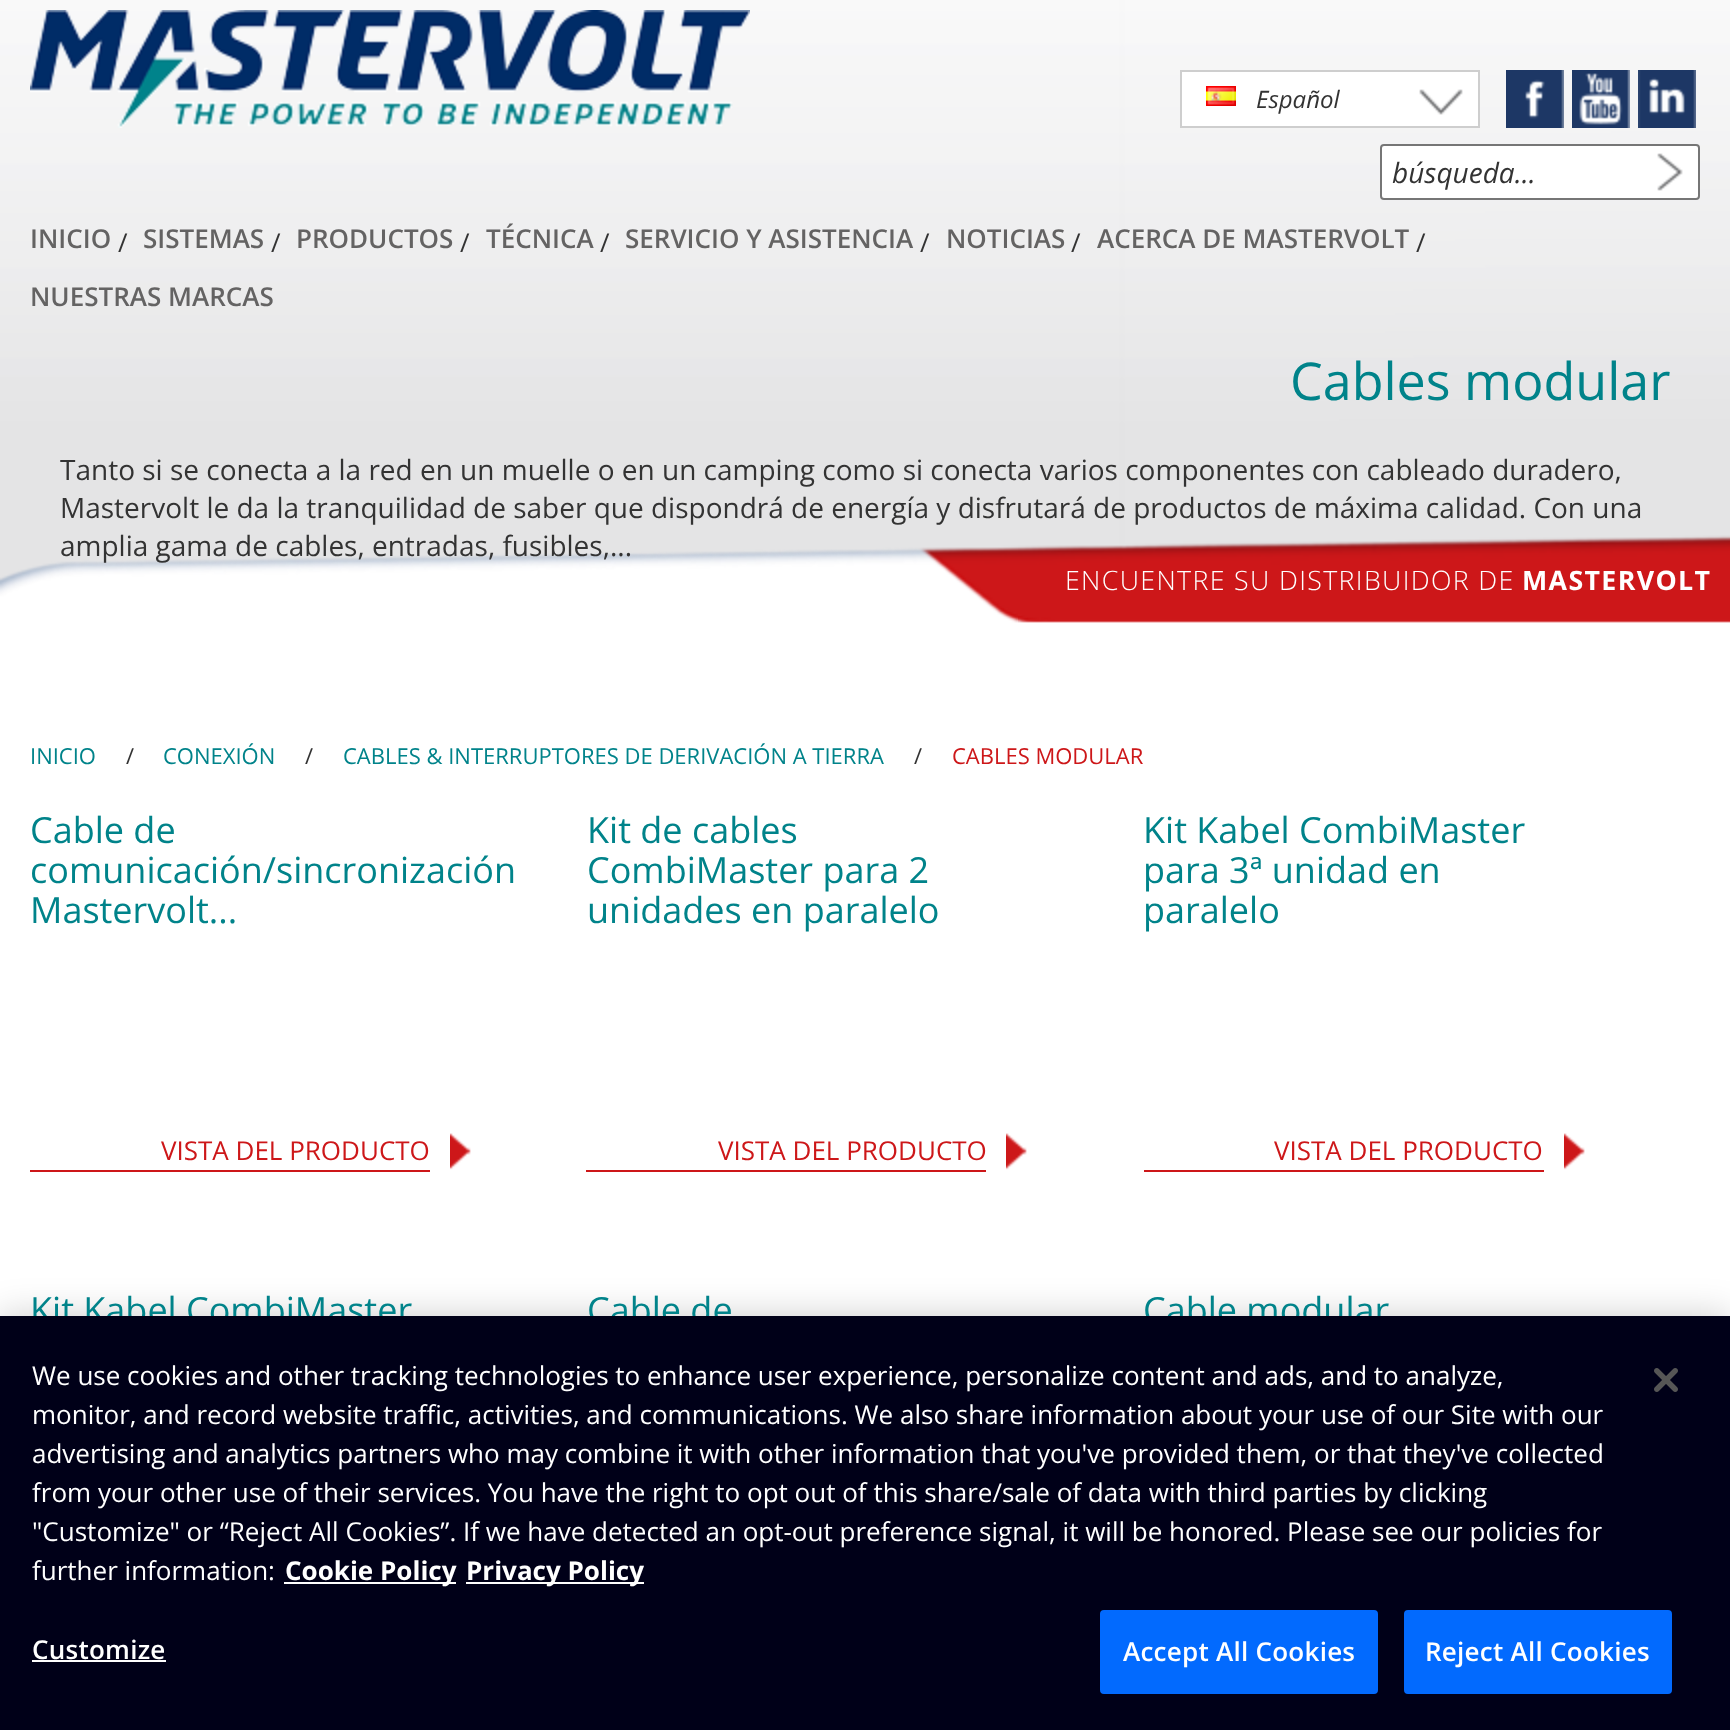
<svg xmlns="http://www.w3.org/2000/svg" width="1730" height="1730">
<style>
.a{font:italic 24px Open Sans;fill:#333}
.b{font:italic 28px Open Sans;fill:#333}
.c{font:600 26px Open Sans;fill:#646363}
.d{font:26px Open Sans;fill:#333}
.e{font:52px Open Sans;fill:#00838a}
.f{font:28px Open Sans;fill:#333}
.g{font:300 26.75px Open Sans;letter-spacing:1.35px;fill:#fff}
.h{font:bold 26.75px Open Sans;letter-spacing:1.35px;fill:#fff}
.i{font:22px Open Sans;fill:#00838a}
.j{font:22px Open Sans;fill:#333}
.k{font:22px Open Sans;fill:#cd1719}
.l{font:36px Open Sans;fill:#00838a}
.m{font:26px Open Sans;fill:#cd1719}
.n{font:26.02px Open Sans;fill:#fff}
.o{font:bold 26.02px Open Sans;fill:#fff}
.p{font:600 26.02px Open Sans;letter-spacing:0.25px;fill:#fff}
</style>
<rect width="100%" height="100%" fill="#fff"/>
<image href="1.png" x="0" y="0" width="1730" height="623"/>
<path fill="#fff" stroke="#cecece" stroke-width="2" d="M1181 71h298v56H1181z"/>
<image href="2.png" x="1206" y="86" width="30" height="20"/>
<image href="3.png" x="1419" y="89" width="44" height="26"/>
<image href="4.png" x="1506" y="70" width="58" height="58"/>
<image href="5.png" x="1572" y="70" width="58" height="58"/>
<image href="6.png" x="1638" y="70" width="58" height="58"/>
<rect fill="#fff" stroke="#767676" stroke-width="2" x="1381" y="145" width="318" height="54" rx="3"/>
<image href="7.png" x="1657" y="153" width="26" height="38"/>
<image href="8.png" x="30" y="10" width="720" height="118"/>
<path fill="#cd1719" d="M30 1170h400v2H30z"/>
<image href="9.png" x="450" y="1133" width="21" height="37"/>
<path fill="#cd1719" d="M586 1170h400v2H586z"/>
<image href="9.png" x="1006" y="1133" width="21" height="37"/>
<path fill="#cd1719" d="M1144 1170h400v2H1144z"/>
<image href="9.png" x="1564" y="1133" width="21" height="37"/>
<path fill="#00000033" filter="blur(18px)" d="M0 1316h1730v414H0z"/>
<text class="a" x="1256" y="108">Español</text>
<text class="b" x="1392" y="183">búsqueda...</text>
<text class="c" x="30" y="248">INICIO</text>
<text class="d" x="118" y="252">/</text>
<text class="c" x="143" y="248">SISTEMAS</text>
<text class="d" x="271" y="252">/</text>
<text class="c" x="296" y="248">PRODUCTOS</text>
<text class="d" x="460" y="252">/</text>
<text class="c" x="486" y="248">TÉCNICA</text>
<text class="d" x="600" y="252">/</text>
<text class="c" x="625" y="248">SERVICIO Y ASISTENCIA</text>
<text class="d" x="920" y="252">/</text>
<text class="c" x="946" y="248">NOTICIAS</text>
<text class="d" x="1071" y="252">/</text>
<text class="c" x="1097" y="248">ACERCA DE MASTERVOLT</text>
<text class="d" x="1416" y="252">/</text>
<text class="c" x="30" y="306">NUESTRAS MARCAS</text>
<text class="e" x="1290" y="400">Cables modular</text>
<text class="f" x="60" y="480">Tanto si se conecta a la red en un muelle o en un camping como si conecta varios componentes con cableado duradero,</text>
<text class="f" x="60" y="518">Mastervolt le da la tranquilidad de saber que dispondrá de energía y disfrutará de productos de máxima calidad. Con una</text>
<text class="f" x="60" y="556">amplia gama de cables, entradas, fusibles,...</text>
<text class="g" x="1065" y="590">ENCUENTRE SU DISTRIBUIDOR DE</text>
<text class="h" x="1522" y="590">MASTERVOLT</text>
<text class="i" x="30" y="764">INICIO</text>
<text class="j" x="126" y="764">/</text>
<text class="i" x="163" y="764">CONEXIÓN</text>
<text class="j" x="305" y="764">/</text>
<text class="i" x="343" y="764">CABLES &amp; INTERRUPTORES DE DERIVACIÓN A TIERRA</text>
<text class="j" x="914" y="764">/</text>
<text class="k" x="952" y="764">CABLES MODULAR</text>
<text class="l" x="30" y="843">Cable de</text>
<text class="l" x="30" y="883">comunicación/sincronización</text>
<text class="l" x="30" y="923">Mastervolt...</text>
<text class="m" x="161" y="1160">VISTA DEL PRODUCTO</text>
<text class="l" x="587" y="843">Kit de cables</text>
<text class="l" x="587" y="883">CombiMaster para 2</text>
<text class="l" x="587" y="923">unidades en paralelo</text>
<text class="m" x="718" y="1160">VISTA DEL PRODUCTO</text>
<text class="l" x="1143" y="843">Kit Kabel CombiMaster</text>
<text class="l" x="1143" y="883">para 3ª unidad en</text>
<text class="l" x="1143" y="923">paralelo</text>
<text class="m" x="1274" y="1160">VISTA DEL PRODUCTO</text>
<text class="l" x="30" y="1323">Kit Kabel CombiMaster</text>
<text class="l" x="587" y="1323">Cable de</text>
<text class="l" x="1143" y="1323">Cable modular</text>
<path fill="#000018" d="M0 1316h1730v414H0z"/>
<text class="n" x="32" y="1385">We use cookies and other tracking technologies to enhance user experience, personalize content and ads, and to analyze,</text>
<text class="n" x="32" y="1424">monitor, and record website traffic, activities, and communications. We also share information about your use of our Site with our</text>
<text class="n" x="32" y="1463">advertising and analytics partners who may combine it with other information that you've provided them, or that they've collected</text>
<text class="n" x="32" y="1502">from your other use of their services. You have the right to opt out of this share/sale of data with third parties by clicking</text>
<text class="n" x="32" y="1541">"Customize" or “Reject All Cookies”. If we have detected an opt-out preference signal, it will be honored. Please see our policies for</text>
<text class="n" x="32" y="1580">further information:</text>
<path fill="#fff" d="M284 1582h172v2H284z"/>
<text class="o" x="285" y="1580">Cookie Policy</text>
<path fill="#fff" d="M466 1582h178v2H466z"/>
<text class="o" x="466" y="1580">Privacy Policy</text>
<text class="p" x="32" y="1659">Customize</text>
<path fill="#fff" d="M32 1660h134v2H32z"/>
<rect fill="#026afe" stroke="#026afe" stroke-width="2" x="1101" y="1611" width="276" height="82" rx="3"/>
<text class="p" x="1123" y="1661">Accept All Cookies</text>
<rect fill="#026afe" stroke="#026afe" stroke-width="2" x="1405" y="1611" width="266" height="82" rx="3"/>
<text class="p" x="1425" y="1661">Reject All Cookies</text>
<image href="10.png" x="1654" y="1368" width="24" height="24"/>
</svg>
